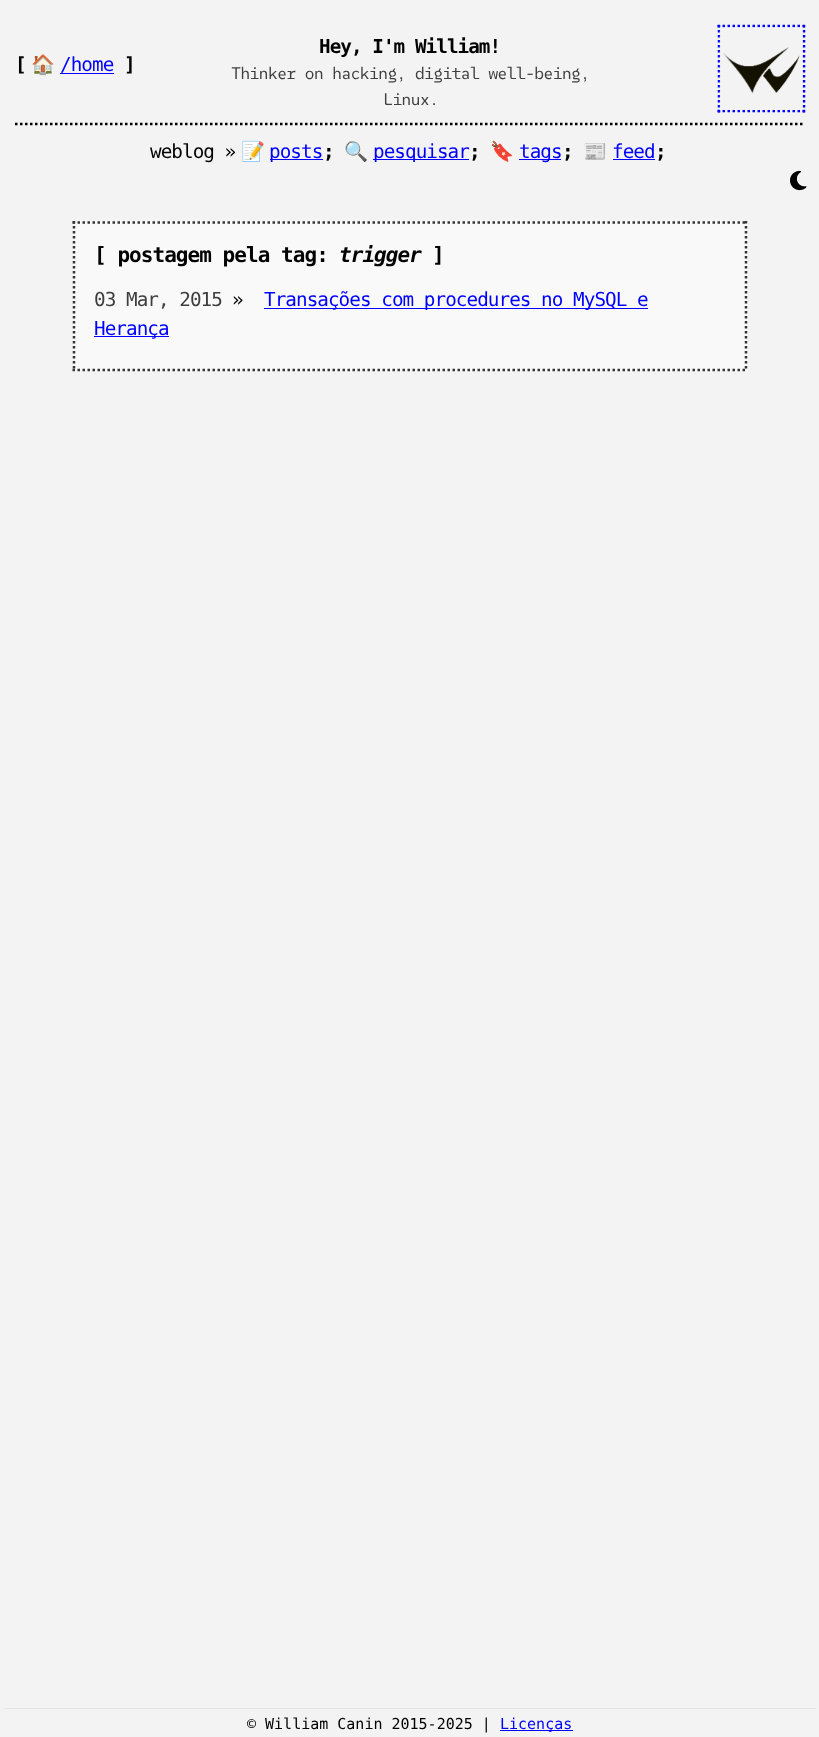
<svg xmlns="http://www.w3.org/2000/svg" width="819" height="1737">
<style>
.a{font:bold 19.3px DejaVu Sans Mono;letter-spacing:-0.95px;fill:#020202}
.b{font:bold 19.3px Noto Color Emoji;letter-spacing:-0.95px;fill:#3e3e3e}
.c{font:19.3px DejaVu Sans Mono;letter-spacing:-0.95px;fill:#00f}
.d{font:16.9px SUSE Mono;letter-spacing:-0.95px;fill:#3e3e3e}
.e{font:19.3px DejaVu Sans Mono;letter-spacing:-0.95px;fill:#020202}
.f{font:bold 21px DejaVu Sans Mono;letter-spacing:-0.95px;fill:#020202}
.g{font:italic bold 21px DejaVu Sans Mono;letter-spacing:-0.95px;fill:#020202}
.h{font:19.3px DejaVu Sans Mono;letter-spacing:-0.95px;fill:#3e3e3e}
.i{font:15px DejaVu Sans Mono;fill:#020202}
.j{font:15px DejaVu Sans Mono;fill:#00f}
</style>
<rect width="100%" height="100%" fill="#f3f3f3"/>
<path fill="#00f" d="M60 73h54v1H60z"/>
<path fill="none" stroke="#00f" stroke-width="2.5" stroke-dasharray="2.5 2.5" d="M717.5 26h87.5"/>
<path fill="none" stroke="#00f" stroke-width="2.5" stroke-dasharray="2.5 2.5" d="M804 25v87.5"/>
<path fill="none" stroke="#00f" stroke-width="2.5" stroke-dasharray="2.5 2.5" d="M717.5 111h87.5"/>
<path fill="none" stroke="#00f" stroke-width="2.5" stroke-dasharray="2.5 2.5" d="M719 25v87.5"/>
<image href="1.png" x="719" y="27" width="84" height="83"/>
<path fill="none" stroke="#020202" stroke-width="2.5" stroke-dasharray="2.5 2.5" d="M15 124h790"/>
<path fill="#00f" d="M270 159h53v1H270z"/>
<path fill="#00f" d="M373 159h96v1H373z"/>
<path fill="#00f" d="M519 159h42v1H519z"/>
<path fill="#00f" d="M613 159h42v1H613z"/>
<image href="2.png" x="790" y="170" width="17" height="21"/>
<path fill="#f9f9f9" d="M73 221h675v150H73z"/>
<path fill="none" stroke="#353535" stroke-width="2.5" stroke-dasharray="2.5 2.5" d="M72.5 222.5h675"/>
<path fill="none" stroke="#353535" stroke-width="2.5" stroke-dasharray="2.5 2.5" d="M746 221v150"/>
<path fill="none" stroke="#353535" stroke-width="2.5" stroke-dasharray="2.5 2.5" d="M72.5 370h675"/>
<path fill="none" stroke="#353535" stroke-width="2.5" stroke-dasharray="2.5 2.5" d="M74 221v150"/>
<path fill="#00f" d="M264 308h384v1H264z"/>
<path fill="#00f" d="M94 336h75v1H94z"/>
<path fill="#e4e4e4" d="M4 1708h812v1H4z"/>
<path fill="#00f" d="M500 1730h73v1H500z"/>
<text class="a" x="15" y="71">[</text>
<text class="b" x="31" y="71">🏠</text>
<text class="c" x="60" y="71">/home</text>
<text class="a" x="124" y="71">]</text>
<text class="a" x="319" y="53">Hey, I'm William!</text>
<text class="d" x="231" y="79">Thinker on hacking, digital well-being,</text>
<text class="d" x="383" y="105">Linux.</text>
<text class="e" x="150" y="158">weblog »</text>
<text class="b" x="241" y="158">📝</text>
<text class="c" x="269" y="158">posts</text>
<text class="a" x="323" y="158">;</text>
<text class="b" x="344" y="158">🔍</text>
<text class="c" x="373" y="158">pesquisar</text>
<text class="a" x="469" y="158">;</text>
<text class="b" x="490" y="158">🔖</text>
<text class="c" x="519" y="158">tags</text>
<text class="a" x="562" y="158">;</text>
<text class="b" x="583" y="158">📰</text>
<text class="c" x="612" y="158">feed</text>
<text class="a" x="655" y="158">;</text>
<text class="f" x="94" y="262">[ postagem pela tag:</text>
<text class="g" x="339" y="262">trigger</text>
<text class="f" x="432" y="262">]</text>
<text class="h" x="94" y="306">03 Mar, 2015</text>
<text class="e" x="232" y="306">»</text>
<text class="c" x="264" y="306">Transações com procedures no MySQL e</text>
<text class="c" x="94" y="335">Herança</text>
<text class="i" x="247" y="1729">© William Canin 2015-2025 |</text>
<text class="j" x="500" y="1729">Licenças</text>
</svg>
